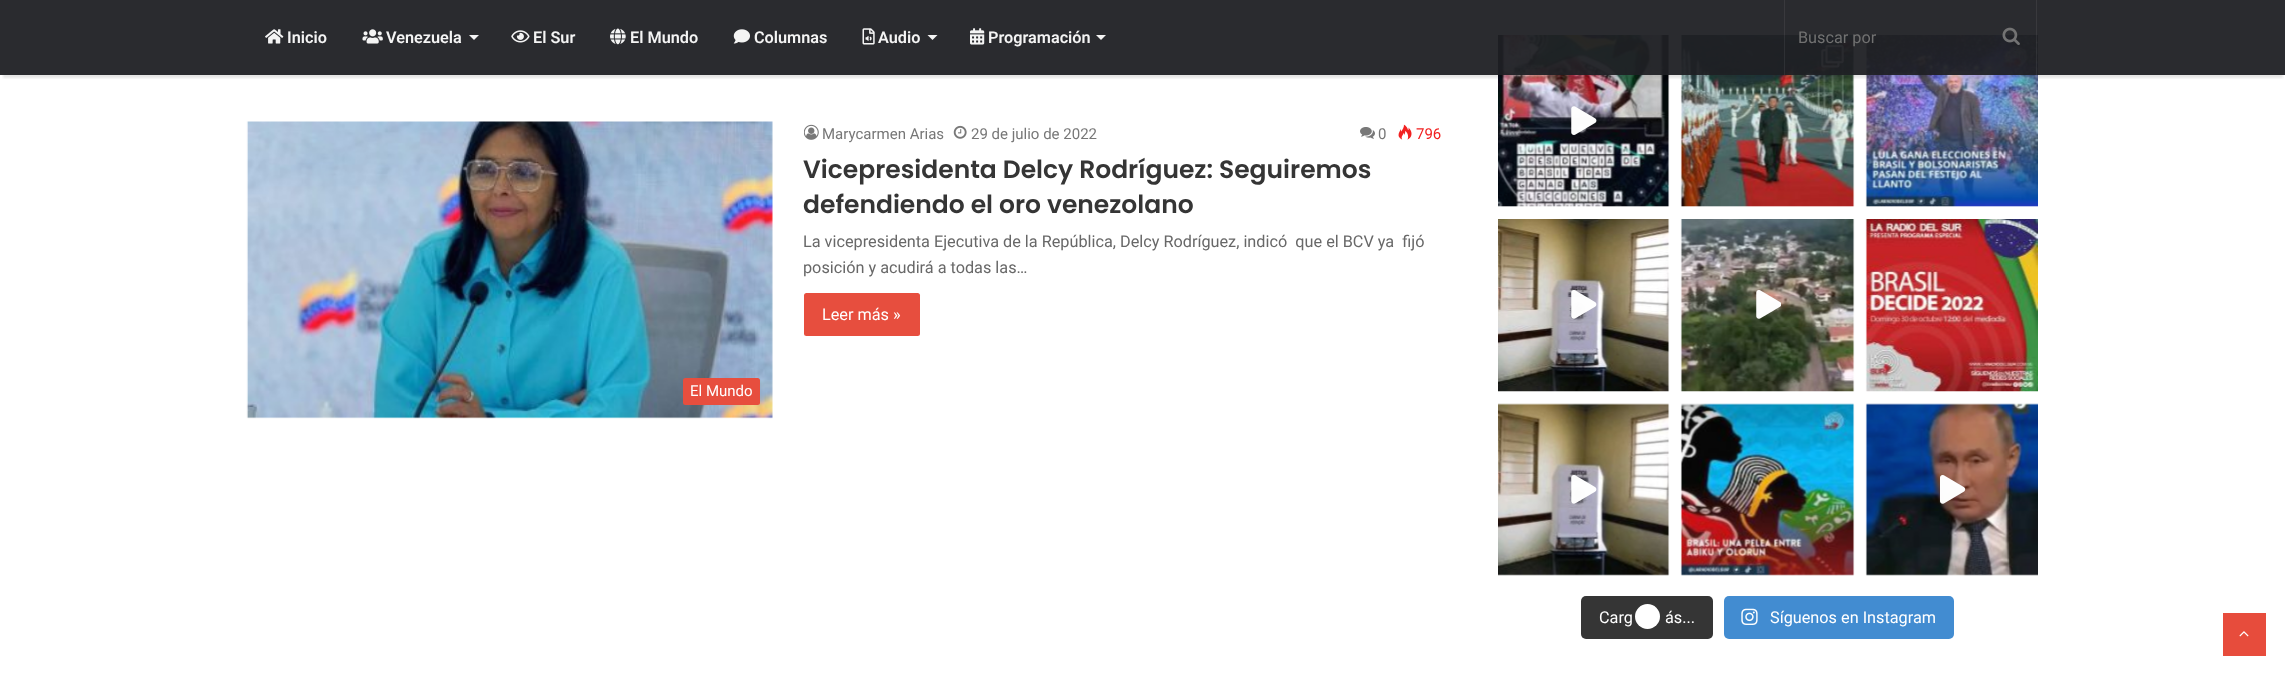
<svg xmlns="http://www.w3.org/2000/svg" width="2285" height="674">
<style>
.a{font:600 16.25px Roboto;fill:#f4f4f4}
.b{font:16.25px Roboto;fill:#717171}
.c{font:15px Roboto;fill:#777}
.d{font:15px Roboto;fill:#f12020}
.e{font:600 25px Poppins;fill:#353535}
.f{font:16.25px Roboto;fill:#686868}
.g{font:16.25px Roboto;fill:#fff}
.h{font:15px Roboto;fill:#fff}
</style>
<defs>
<clipPath id="clip1"><path d="M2 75h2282v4H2z"/></clipPath>
</defs>
<rect width="100%" height="100%" fill="#fff"/>
<image href="14.png" x="1498" y="35" width="172" height="172"/>
<image href="16.png" x="1680" y="35" width="175" height="172"/>
<image href="17.png" x="1821" y="45" width="23" height="23"/>
<image href="18.png" x="1865" y="35" width="173" height="172"/>
<g clip-path="url(#clip1)">
<path fill="#0000001a" filter="blur(1px)" d="M3 8h2280v70H3z"/>
</g>
<path fill="#1f2024f2" d="M0 0h2285v75H0z"/>
<image href="1.png" x="265" y="29" width="19" height="15"/>
<image href="2.png" x="362" y="29" width="21" height="15"/>
<path fill="#f4f4f5" d="M469 35h10l-5 5z"/>
<image href="3.png" x="511" y="30" width="19" height="13"/>
<image href="4.png" x="610" y="28" width="16" height="17"/>
<image href="5.png" x="733" y="29" width="17" height="15"/>
<image href="6.png" x="862" y="28" width="13" height="17"/>
<path fill="#fffffff2" d="M927.5 35h10l-5 5z"/>
<image href="7.png" x="970" y="28" width="15" height="17"/>
<path fill="#fffffff2" d="M1096 35h10l-5 5z"/>
<path fill="#ffffff12" d="M2036 0h1v75H2036z"/>
<path fill="#ffffff12" d="M1784 0h1v75H1784z"/>
<image href="8.png" x="2002" y="27" width="18" height="18"/>
<image href="9.png" x="804" y="124" width="15" height="16"/>
<image href="10.png" x="953" y="125" width="14" height="14"/>
<image href="11.png" x="1360" y="127" width="15" height="12"/>
<image href="12.png" x="1398" y="124" width="14" height="16"/>
<rect fill="#e74e3e" x="804" y="293" width="116" height="43" rx="2.5"/>
<image href="13.png" x="246" y="121" width="527" height="298"/>
<rect fill="#e74e3e" x="683" y="378" width="77" height="27" rx="2.5"/>
<image href="15.png" x="1571" y="106" width="26" height="29"/>
<image href="19.png" x="1498" y="219" width="172" height="173"/>
<image href="20.png" x="1571" y="290" width="26" height="29"/>
<image href="21.png" x="1680" y="219" width="175" height="173"/>
<image href="22.png" x="1756" y="290" width="25" height="29"/>
<image href="23.png" x="1865" y="219" width="173" height="173"/>
<image href="24.png" x="1498" y="403" width="172" height="173"/>
<image href="25.png" x="1571" y="475" width="26" height="29"/>
<image href="26.png" x="1680" y="403" width="175" height="173"/>
<image href="27.png" x="1865" y="403" width="173" height="173"/>
<image href="28.png" x="1940" y="475" width="26" height="29"/>
<rect fill="#353535" x="1581" y="596" width="132" height="43" rx="5"/>
<circle fill="#fff" cx="1647.5" cy="616.5" r="12.5"/>
<rect fill="#428cd1" x="1724" y="596" width="230" height="43" rx="5"/>
<image href="29.png" x="1741" y="608" width="17" height="17"/>
<path fill="#e74c3c" d="M2223 613h43v43H2223z"/>
<image href="30.png" x="2239" y="631" width="10" height="6"/>
<text class="a" x="287" y="43">Inicio</text>
<text class="a" x="386" y="43">Venezuela</text>
<text class="a" x="533" y="43">El Sur</text>
<text class="a" x="630" y="43">El Mundo</text>
<text class="a" x="754" y="43">Columnas</text>
<text class="a" x="878" y="43">Audio</text>
<text class="a" x="988" y="43">Programación</text>
<text class="b" x="1798" y="43">Buscar por</text>
<text class="c" x="822" y="139">Marycarmen Arias</text>
<text class="c" x="971" y="139">29 de julio de 2022</text>
<text class="c" x="1378" y="139">0</text>
<text class="d" x="1416" y="139">796</text>
<text class="e" x="803" y="178">Vicepresidenta Delcy Rodríguez: Seguiremos</text>
<text class="e" x="803" y="213">defendiendo el oro venezolano</text>
<text class="f" xml:space="preserve" x="803" y="247">La vicepresidenta Ejecutiva de la República, Delcy Rodríguez, indicó  que el BCV ya  fijó</text>
<text class="f" x="803" y="273">posición y acudirá a todas las…</text>
<text class="g" x="822" y="320">Leer más »</text>
<text class="h" x="690" y="396">El Mundo</text>
<text class="g" x="1599" y="623">Carg</text>
<text class="g" x="1665" y="623">ás...</text>
<text class="g" x="1770" y="623">Síguenos en Instagram</text>
</svg>
